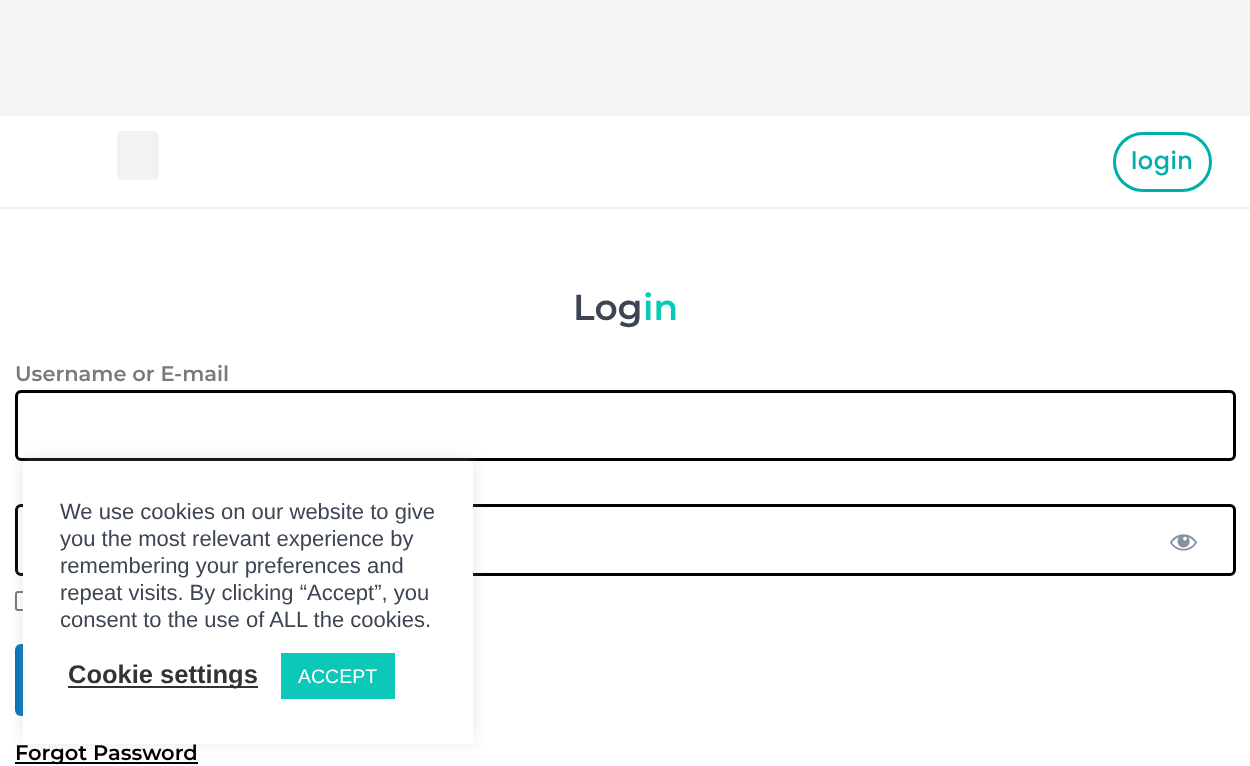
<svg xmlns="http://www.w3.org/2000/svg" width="1250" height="766">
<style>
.a{font:500 24px Poppins;letter-spacing:0.5px;fill:#00aeaa}
.b{font:600 36px Montserrat;fill:#3c4552}
.c{font:600 36px Montserrat;fill:#08c8b8}
.d{font:600 21px Montserrat;fill:#7a7a7a}
.e{font:600 21px Montserrat;fill:#000}
.f{font:22px Liberation Sans;fill:#3c4552}
.g{font:bold 25.5px Liberation Sans;fill:#333}
.h{font:19.5px Liberation Sans;fill:#fff}
</style>
<defs>
<linearGradient id="g1" gradientUnits="userSpaceOnUse" x1="15" y1="680" x2="198" y2="680"><stop offset="0" stop-color="#0170b9"/><stop offset="1" stop-color="#08c8b9"/></linearGradient>
</defs>
<rect width="100%" height="100%" fill="#fff"/>
<path fill="#f5f5f5" d="M0 0h1250v116H0z"/>
<path fill="#eee" d="M0 207h1250v2H0z"/>
<rect fill="#f2f2f2" x="117" y="131" width="42" height="49" rx="5"/>
<rect fill="none" stroke="#00aeaa" stroke-width="3" x="1114.5" y="133.5" width="96" height="57" rx="28.5"/>
<rect fill="none" stroke="#000" stroke-width="3" x="16.5" y="391.5" width="1218" height="68" rx="4.5"/>
<rect fill="none" stroke="#000" stroke-width="3" x="16.5" y="505.5" width="1218" height="69" rx="4.5"/>
<image href="1.png" x="1170" y="534" width="28" height="17"/>
<rect fill="none" stroke="#767676" stroke-width="2" x="16" y="592" width="18" height="18" rx="2"/>
<rect fill="url(#g1)" x="15" y="644" width="183" height="72" rx="6"/>
<path fill="#000" d="M15 762h183v2H15z"/>
<path fill="#acabab4d" filter="blur(7.5px)" d="M23 459h450v284H23z"/>
<path fill="#fff" d="M23 461h450v283H23z"/>
<path fill="#333" d="M68 686h190v2H68z"/>
<path fill="#0cc8b9" d="M281 653h114v46H281z"/>
<text class="a" x="1131" y="169">login</text>
<text class="b" x="573" y="320">Log</text>
<text class="c" x="643" y="320">in</text>
<text class="d" x="15" y="381">Username or E-mail</text>
<text class="e" x="15" y="760">Forgot Password</text>
<text class="f" x="60" y="519">We use cookies on our website to give</text>
<text class="f" x="60" y="546">you the most relevant experience by</text>
<text class="f" x="60" y="573">remembering your preferences and</text>
<text class="f" x="60" y="600">repeat visits. By clicking “Accept”, you</text>
<text class="f" x="60" y="627">consent to the use of ALL the cookies.</text>
<text class="g" x="68" y="683">Cookie settings</text>
<text class="h" x="298" y="683">ACCEPT</text>
</svg>
